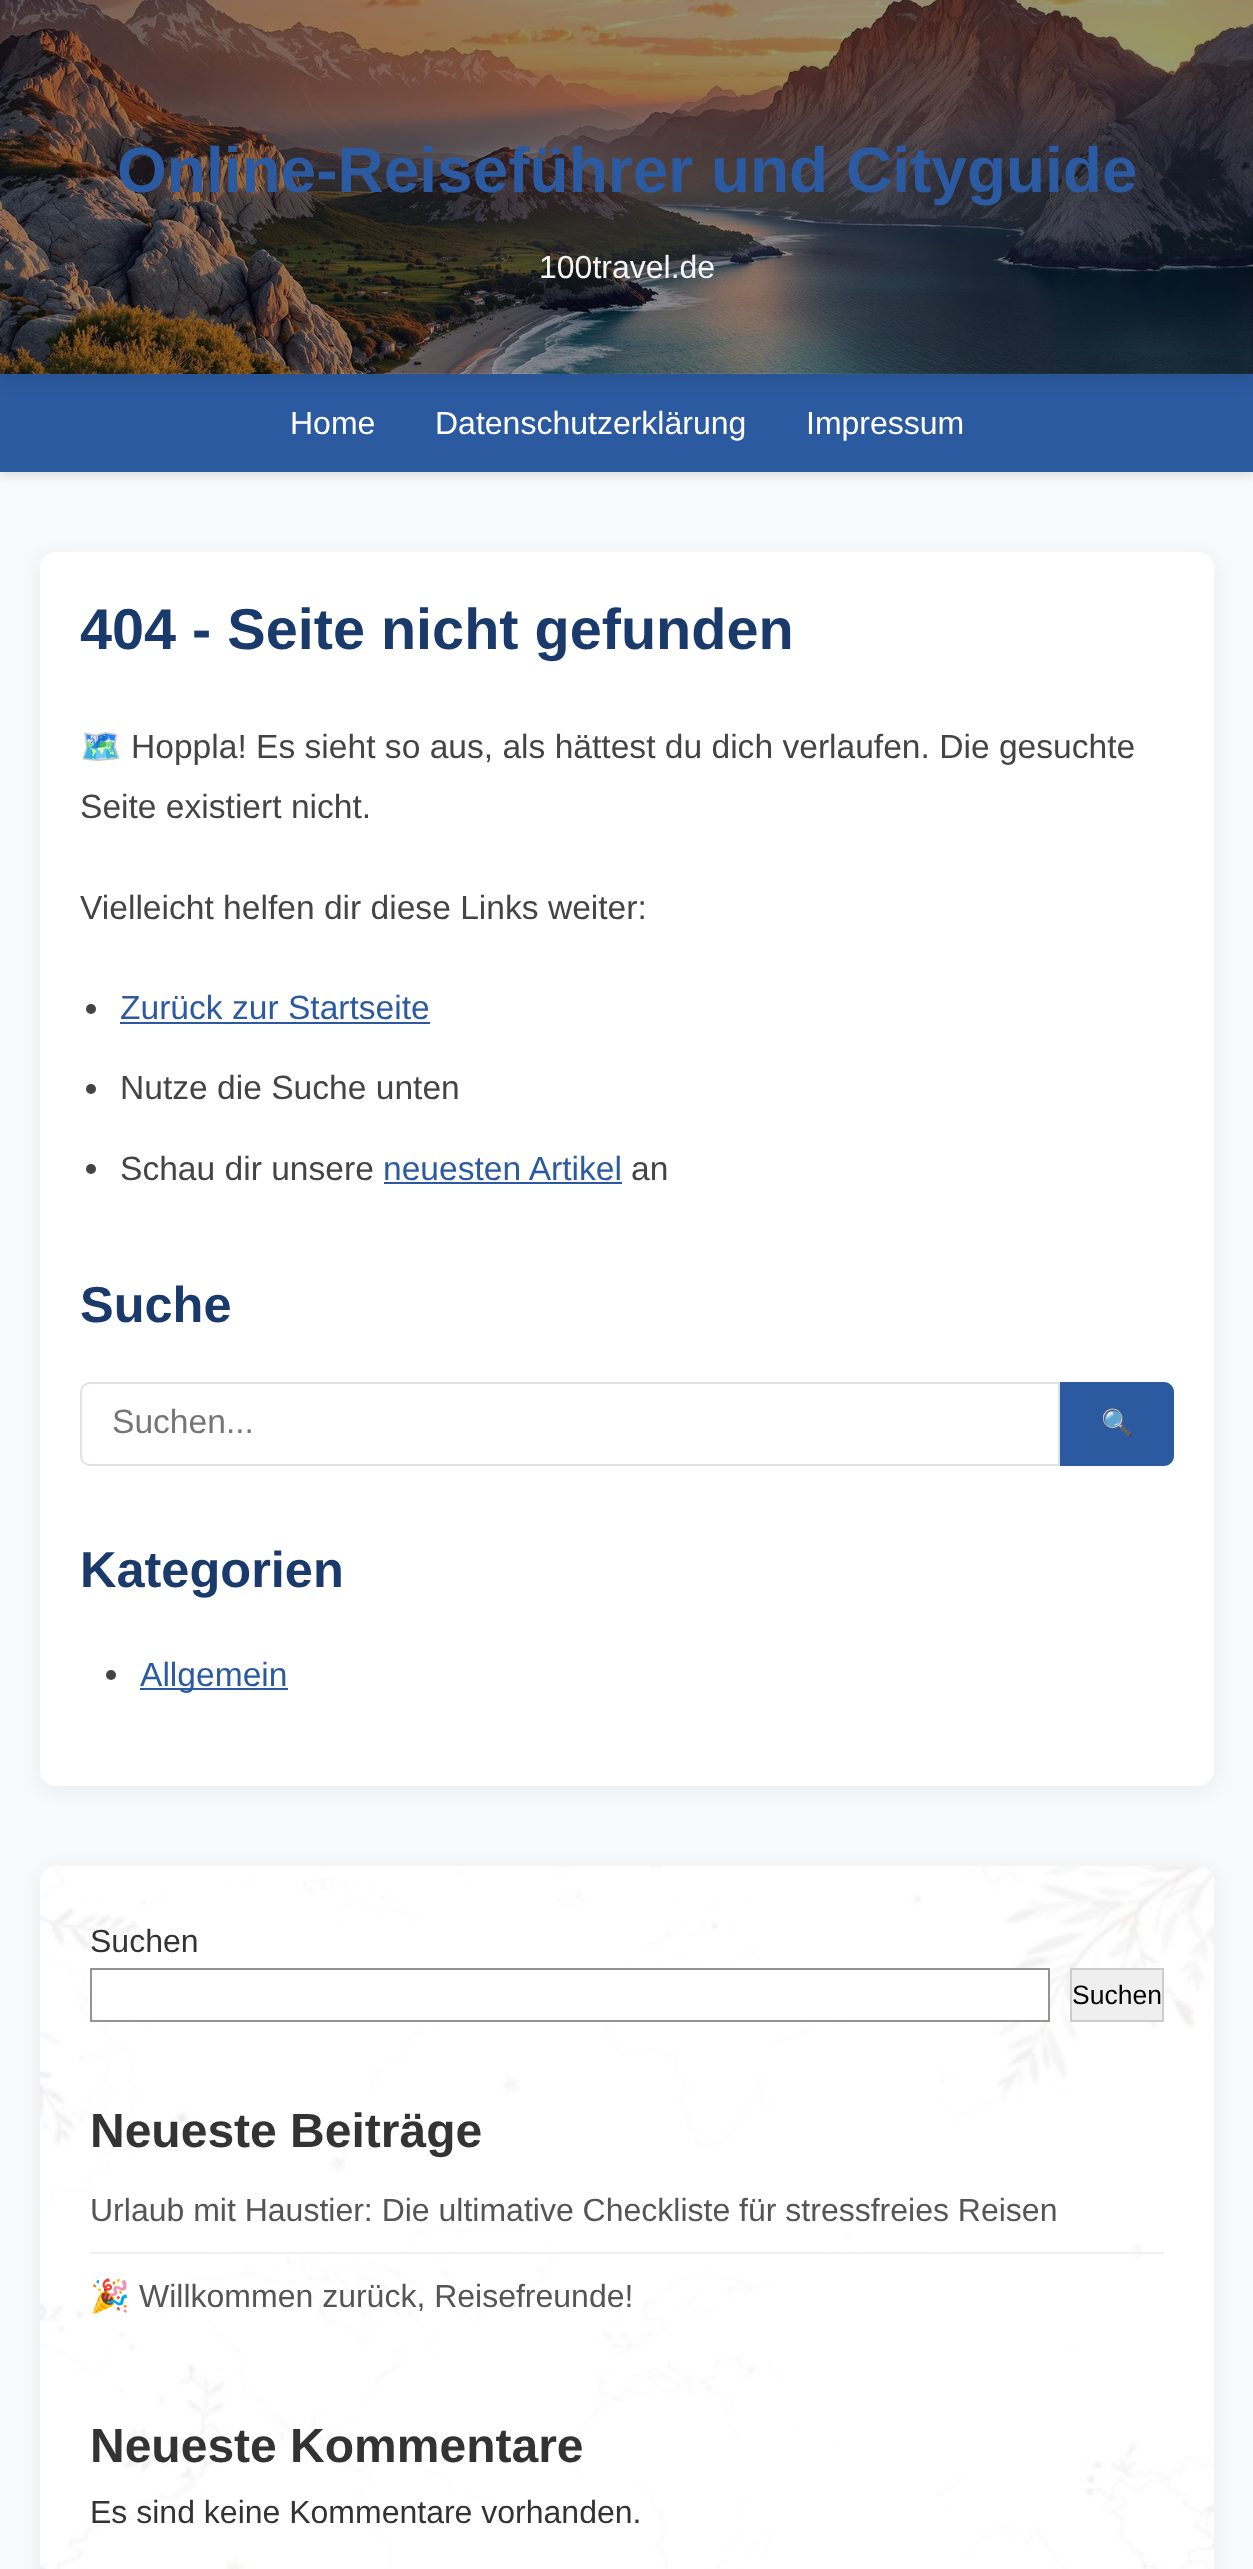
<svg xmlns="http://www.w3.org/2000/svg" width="1253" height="2569">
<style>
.a{font:bold 64px Liberation Sans;fill:#2c5aa0}
.b{font:32px Liberation Sans;fill:#f5f5f5}
.c{font:32px Liberation Sans;fill:#fff}
.d{font:bold 57.6px Liberation Sans;fill:#1a3a6b}
.e{font:33.6px Noto Color Emoji;fill:#444}
.f{font:33.6px Liberation Sans;fill:#444}
.g{font:33.6px Liberation Sans;fill:#2c5aa0}
.h{font:bold 50.5px Liberation Sans;fill:#1a3a6b}
.i{font:33.6px Liberation Sans;fill:#757575}
.j{font:26.5px Noto Color Emoji;fill:#fff}
.k{font:32px Liberation Sans;fill:#333}
.l{font:26.5px Liberation Sans;fill:#000}
.m{font:bold 48px Liberation Sans;fill:#333}
.n{font:32px Liberation Sans;fill:#555}
.o{font:32px Noto Color Emoji;fill:#555}
</style>
<rect width="100%" height="100%" fill="#f8f9fa"/>
<path fill="#0000001a" filter="blur(5px)" d="M0 378h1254v98H0z"/>
<path fill="#2c5aa0" d="M0 374h1253v98H0z"/>
<path fill="#0000001a" filter="blur(10px)" d="M0 4h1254v374H0z"/>
<image href="1.png" x="0" y="0" width="1253" height="374"/>
<rect fill="#0000000d" filter="blur(10px)" x="40" y="556" width="1174" height="1234" rx="16"/>
<rect fill="#fff" x="40" y="552" width="1174" height="1234" rx="16"/>
<circle fill="#444" cx="91" cy="1009" r="5"/>
<path fill="#2c5aa0" d="M120 1022h310v2H120z"/>
<circle fill="#444" cx="91" cy="1089" r="5"/>
<circle fill="#444" cx="91" cy="1169" r="5"/>
<path fill="#2c5aa0" d="M384 1182h238v2H384z"/>
<path fill="none" stroke="#dee2e6" stroke-width="2" d="M90 1383h969v82h-969c-5 0-9-4-9-9v-64c0-5 4-9 9-9z"/>
<path fill="#2c5aa0" d="M1060 1382h104c5.5 0 10 4.5 10 10v64c0 5.5-4.5 10-10 10h-104z"/>
<circle fill="#444" cx="111" cy="1675" r="5"/>
<path fill="#2c5aa0" d="M140 1688h148v2H140z"/>
<rect fill="#0000000d" filter="blur(10px)" x="40" y="1870" width="1174" height="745" rx="16"/>
<rect fill="#fff" x="40" y="1866" width="1174" height="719" rx="16"/>
<image href="2.png" x="40" y="1866" width="1174" height="703"/>
<path fill="#fff" d="M134 1970h914v50H134z"/>
<path fill="none" stroke="#949494" stroke-width="2" d="M91 1969h958v52H91z"/>
<path fill="#efefef" stroke="#ccc" stroke-width="2" d="M1071 1969h92v52H1071z"/>
<path fill="#f0f0f0" d="M90 2252h1074v2H90z"/>
<text class="a" x="117" y="192">Online-Reiseführer und Cityguide</text>
<text class="b" x="539" y="278">100travel.de</text>
<text class="c" x="290" y="434">Home</text>
<text class="c" x="435" y="434">Datenschutzerklärung</text>
<text class="c" x="806" y="434">Impressum</text>
<text class="d" x="80" y="649">404 - Seite nicht gefunden</text>
<text class="e" x="80" y="758">🗺️</text>
<text class="f" x="131" y="758">Hoppla! Es sieht so aus, als hättest du dich verlaufen. Die gesuchte</text>
<text class="f" x="80" y="818">Seite existiert nicht.</text>
<text class="f" x="80" y="919">Vielleicht helfen dir diese Links weiter:</text>
<text class="g" x="120" y="1019">Zurück zur Startseite</text>
<text class="f" x="120" y="1099">Nutze die Suche unten</text>
<text class="f" x="120" y="1180">Schau dir unsere</text>
<text class="g" x="383" y="1180">neuesten Artikel</text>
<text class="f" x="631" y="1180">an</text>
<text class="h" x="80" y="1322">Suche</text>
<text class="i" x="112" y="1433">Suchen...</text>
<text class="j" x="1101" y="1432">🔍</text>
<text class="h" x="80" y="1587">Kategorien</text>
<text class="g" x="140" y="1686">Allgemein</text>
<text class="k" x="90" y="1952">Suchen</text>
<text class="l" x="1072" y="2004">Suchen</text>
<text class="m" x="90" y="2147">Neueste Beiträge</text>
<text class="n" x="90" y="2221">Urlaub mit Haustier: Die ultimative Checkliste für stressfreies Reisen</text>
<text class="o" x="90" y="2307">🎉</text>
<text class="n" x="139" y="2307">Willkommen zurück, Reisefreunde!</text>
<text class="m" x="90" y="2462">Neueste Kommentare</text>
<text class="k" x="90" y="2523">Es sind keine Kommentare vorhanden.</text>
</svg>
